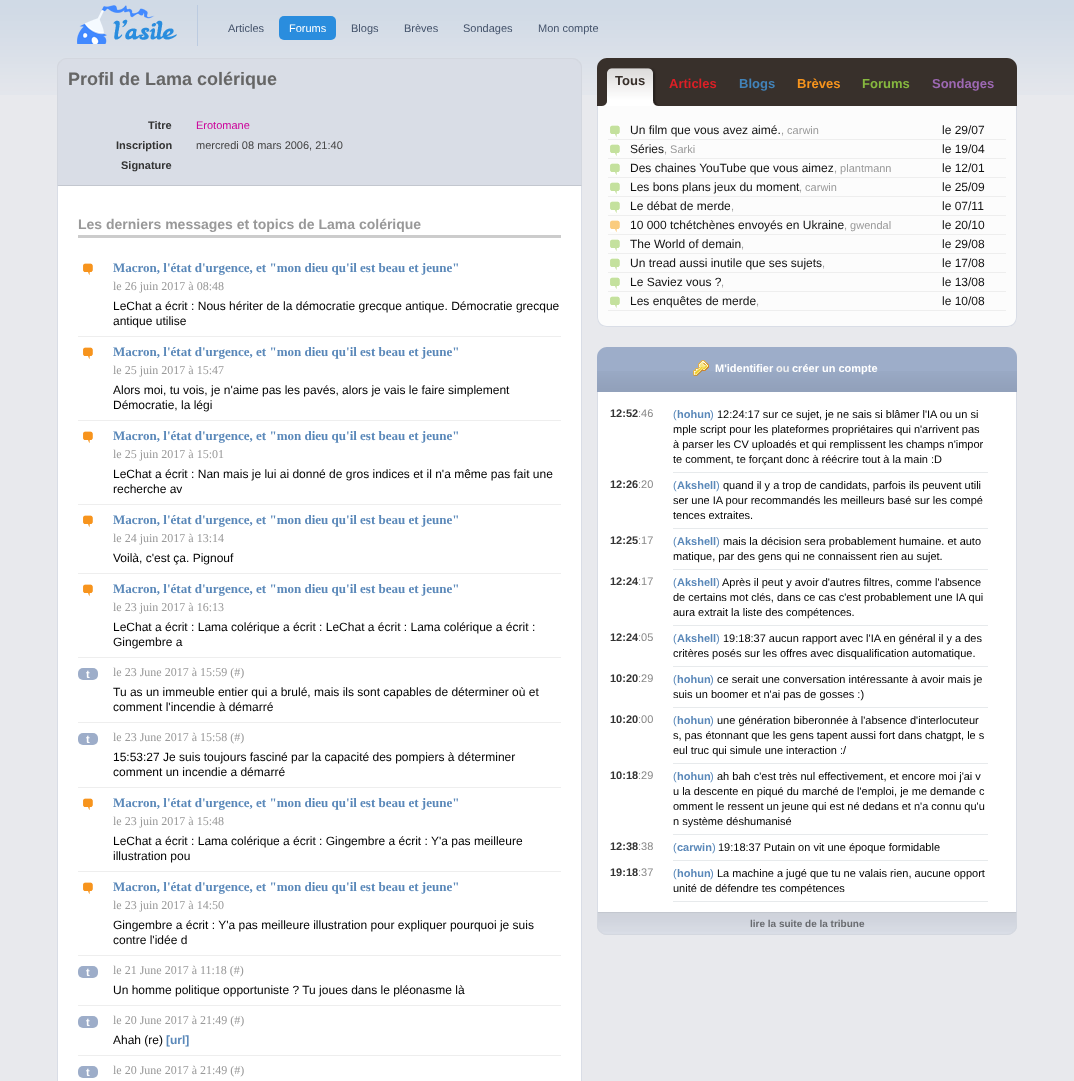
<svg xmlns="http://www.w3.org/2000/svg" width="1074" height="1081">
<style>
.a{font:11px Liberation Sans;fill:#43526a}
.b{font:11px Liberation Sans;fill:#fff}
.c{font:bold 18px Liberation Sans;fill:#666}
.d{font:bold 11px Liberation Sans;fill:#333}
.e{font:11px Liberation Sans;fill:#c09}
.f{font:11px Liberation Sans;fill:#444}
.g{font:bold 14px Liberation Sans;fill:#999}
.h{font:bold 13px Liberation Serif;fill:#5a88b9}
.i{font:12px Liberation Serif;fill:#999}
.j{font:12px Liberation Sans;fill:#000}
.k{font:bold 11px Liberation Sans;fill:#fff}
.l{font:bold 12px Liberation Sans;fill:#5a88b9}
.m{font:bold 13px Liberation Sans;fill:#38302b}
.n{font:bold 13px Liberation Sans;fill:#dc1f26}
.o{font:bold 13px Liberation Sans;fill:#4283b9}
.p{font:bold 13px Liberation Sans;fill:#f7941d}
.q{font:bold 13px Liberation Sans;fill:#86b83f}
.r{font:bold 13px Liberation Sans;fill:#9d68b3}
.s{font:12px Liberation Sans;fill:#111}
.t{font:11px Liberation Sans;fill:#999}
.u{font:bold 11px Liberation Sans;fill:#eee}
.v{font:11px Liberation Sans;fill:#888}
.w{font:11px Liberation Sans;fill:#5a88b9}
.x{font:bold 11px Liberation Sans;fill:#5a88b9}
.y{font:11px Liberation Sans;fill:#000}
.z{font:bold 10px Liberation Sans;fill:#696b6f}
</style>
<rect width="100%" height="100%" fill="#e8e9ed"/>
<image href="1.png" x="0" y="0" width="1074" height="95"/>
<path fill="#bccbe0" d="M197 5h1v41H197z"/>
<image href="2.png" x="77" y="5" width="100" height="39"/>
<rect fill="#2a8dde" x="279" y="16" width="57" height="24" rx="5"/>
<path fill="#d9dde6" d="M67 58h505c5.5 0 10 4.5 10 10v118h-525v-118c0-5.5 4.5-10 10-10z"/>
<path fill="#d3d7df" d="M67 58c-3 0-5 1-7 3l1 1c1-2 3-3 6-3h505c2 0 5 1 6 3l1-1c-1-2-4-3-7-3z"/>
<path fill="#d3d7df" d="M582 186v-118c0-3-1-6-3-7l-1 1c2 1 3 4 3 6v117z"/>
<path fill="#c3c7cf" d="M582 186l-1-1h-523l-1 1z"/>
<path fill="#d3d7df" d="M57 186l1-1v-117c0-2 1-5 3-6l-1-1c-2 1-3 4-3 7z"/>
<path fill="#fff" d="M58 186h523v895H58z"/>
<path fill="#d9dde6" fill-rule="evenodd" d="M57 186h525v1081c0 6-4 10-10 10h-505c-6 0-10-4-10-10zm1 0h523v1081c0 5-4 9-9 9h-505c-5 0-9-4-9-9z"/>
<path fill="#ccc" d="M78 235h483v3H78z"/>
<path fill="#eee" d="M78 336h483v1H78z"/>
<path fill="#f7941d" d="M83 263h10v12H83z"/>
<image href="3.png" x="83" y="263" width="10" height="12"/>
<path fill="#eee" d="M78 420h483v1H78z"/>
<path fill="#f7941d" d="M83 347h10v12H83z"/>
<image href="3.png" x="83" y="347" width="10" height="12"/>
<path fill="#eee" d="M78 504h483v1H78z"/>
<path fill="#f7941d" d="M83 431h10v12H83z"/>
<image href="3.png" x="83" y="431" width="10" height="12"/>
<path fill="#eee" d="M78 573h483v1H78z"/>
<path fill="#f7941d" d="M83 515h10v12H83z"/>
<image href="3.png" x="83" y="515" width="10" height="12"/>
<path fill="#eee" d="M78 657h483v1H78z"/>
<path fill="#f7941d" d="M83 584h10v12H83z"/>
<image href="3.png" x="83" y="584" width="10" height="12"/>
<path fill="#eee" d="M78 722h483v1H78z"/>
<rect fill="#9dadc9" x="78" y="668" width="20" height="12" rx="5"/>
<path fill="#eee" d="M78 787h483v1H78z"/>
<rect fill="#9dadc9" x="78" y="733" width="20" height="12" rx="5"/>
<path fill="#eee" d="M78 871h483v1H78z"/>
<path fill="#f7941d" d="M83 798h10v12H83z"/>
<image href="3.png" x="83" y="798" width="10" height="12"/>
<path fill="#eee" d="M78 955h483v1H78z"/>
<path fill="#f7941d" d="M83 882h10v12H83z"/>
<image href="3.png" x="83" y="882" width="10" height="12"/>
<path fill="#eee" d="M78 1005h483v1H78z"/>
<rect fill="#9dadc9" x="78" y="966" width="20" height="12" rx="5"/>
<path fill="#eee" d="M78 1055h483v1H78z"/>
<rect fill="#9dadc9" x="78" y="1016" width="20" height="12" rx="5"/>
<rect fill="#9dadc9" x="78" y="1066" width="20" height="12" rx="5"/>
<path fill="#38302b" d="M607 58h400c5.5 0 10 4.5 10 10v38h-420v-38c0-5.5 4.5-10 10-10z"/>
<image href="4.png" x="612" y="68" width="46" height="38"/>
<image href="5.png" x="602" y="68" width="10" height="38"/>
<path fill="#fcfcfc" d="M597 106h420v211c0 5.5-4.5 10-10 10h-400c-5.5 0-10-4.5-10-10z"/>
<path fill="#d9dde6" fill-rule="evenodd" d="M597 106h420v211c0 6-4 10-10 10h-400c-6 0-10-4-10-10zm1 0h418v211c0 5-4 9-9 9h-400c-5 0-9-4-9-9z"/>
<path fill="#eee" d="M608 139h398v1H608z"/>
<path fill="#c4e19d" d="M610 125h10v12H610z"/>
<image href="6.png" x="610" y="125" width="10" height="12"/>
<path fill="#eee" d="M608 158h398v1H608z"/>
<path fill="#c4e19d" d="M610 144h10v12H610z"/>
<image href="6.png" x="610" y="144" width="10" height="12"/>
<path fill="#eee" d="M608 177h398v1H608z"/>
<path fill="#c4e19d" d="M610 163h10v12H610z"/>
<image href="6.png" x="610" y="163" width="10" height="12"/>
<path fill="#eee" d="M608 196h398v1H608z"/>
<path fill="#c4e19d" d="M610 182h10v12H610z"/>
<image href="6.png" x="610" y="182" width="10" height="12"/>
<path fill="#eee" d="M608 215h398v1H608z"/>
<path fill="#c4e19d" d="M610 201h10v12H610z"/>
<image href="6.png" x="610" y="201" width="10" height="12"/>
<path fill="#eee" d="M608 234h398v1H608z"/>
<path fill="#facc7e" d="M610 220h10v12H610z"/>
<image href="7.png" x="610" y="220" width="10" height="12"/>
<path fill="#eee" d="M608 253h398v1H608z"/>
<path fill="#c4e19d" d="M610 239h10v12H610z"/>
<image href="6.png" x="610" y="239" width="10" height="12"/>
<path fill="#eee" d="M608 272h398v1H608z"/>
<path fill="#c4e19d" d="M610 258h10v12H610z"/>
<image href="6.png" x="610" y="258" width="10" height="12"/>
<path fill="#eee" d="M608 291h398v1H608z"/>
<path fill="#c4e19d" d="M610 277h10v12H610z"/>
<image href="6.png" x="610" y="277" width="10" height="12"/>
<path fill="#eee" d="M608 310h398v1H608z"/>
<path fill="#c4e19d" d="M610 296h10v12H610z"/>
<image href="6.png" x="610" y="296" width="10" height="12"/>
<path fill="#9dadc9" d="M607 347h400c5.5 0 10 4.5 10 10v35h-420v-35c0-5.5 4.5-10 10-10z"/>
<image href="8.png" x="597" y="371" width="420" height="21"/>
<image href="9.png" x="693" y="360" width="16" height="16"/>
<path fill="#fff" d="M598 392h418v520H598z"/>
<path fill="#d9dde6" d="M1016 392h1v520H1016z"/>
<path fill="#d9dde6" d="M597 392h1v520H597z"/>
<path fill="#e7eaec" d="M673 472h315v1H673z"/>
<path fill="#e7eaec" d="M673 528h315v1H673z"/>
<path fill="#e7eaec" d="M673 569h315v1H673z"/>
<path fill="#e7eaec" d="M673 625h315v1H673z"/>
<path fill="#e7eaec" d="M673 666h315v1H673z"/>
<path fill="#e7eaec" d="M673 707h315v1H673z"/>
<path fill="#e7eaec" d="M673 763h315v1H673z"/>
<path fill="#e7eaec" d="M673 834h315v1H673z"/>
<path fill="#e7eaec" d="M673 860h315v1H673z"/>
<path fill="#e7eaec" d="M673 901h315v1H673z"/>
<path fill="#d9dde6" d="M597 912h420v13c0 5.5-4.5 10-10 10h-400c-5.5 0-10-4.5-10-10z"/>
<image href="10.png" x="597" y="913" width="420" height="19"/>
<path fill="#c3c7cf" d="M597 912l1 1h418l1-1z"/>
<path fill="#d3d7df" d="M1017 912l-1 1v12c0 2.5-1 5-2.5 6.5l.5 .5c2-1.5 3-4 3-7z"/>
<path fill="#d3d7df" d="M607 935h400c3 0 5-1 7-3l-1-1c-1 2-3 3-6 3h-400c-3 0-5-1-6-3l-1 1c2 2 4 3 7 3z"/>
<path fill="#d3d7df" d="M598 913l-1-1v13c0 3 1 5.5 3 7l.5-.5c-1.5-1.5-2.5-4-2.5-6.5z"/>
<text class="a" x="228" y="32">Articles</text>
<text class="b" x="289" y="32">Forums</text>
<text class="a" x="351" y="32">Blogs</text>
<text class="a" x="404" y="32">Brèves</text>
<text class="a" x="463" y="32">Sondages</text>
<text class="a" x="538" y="32">Mon compte</text>
<text class="c" x="68" y="85">Profil de Lama colérique</text>
<text class="d" x="148" y="129">Titre</text>
<text class="e" x="196" y="129">Erotomane</text>
<text class="d" x="116" y="149">Inscription</text>
<text class="f" x="196" y="149">mercredi 08 mars 2006, 21:40</text>
<text class="d" x="121" y="169">Signature</text>
<text class="g" x="78" y="229">Les derniers messages et topics de Lama colérique</text>
<text class="h" x="113" y="272">Macron, l'état d'urgence, et "mon dieu qu'il est beau et jeune"</text>
<text class="i" x="113" y="290">le 26 juin 2017 à 08:48</text>
<text class="j" x="113" y="310">LeChat a écrit : Nous hériter de la démocratie grecque antique. Démocratie grecque</text>
<text class="j" x="113" y="325">antique utilise</text>
<text class="h" x="113" y="356">Macron, l'état d'urgence, et "mon dieu qu'il est beau et jeune"</text>
<text class="i" x="113" y="374">le 25 juin 2017 à 15:47</text>
<text class="j" x="113" y="394">Alors moi, tu vois, je n'aime pas les pavés, alors je vais le faire simplement</text>
<text class="j" x="113" y="409">Démocratie, la légi</text>
<text class="h" x="113" y="440">Macron, l'état d'urgence, et "mon dieu qu'il est beau et jeune"</text>
<text class="i" x="113" y="458">le 25 juin 2017 à 15:01</text>
<text class="j" x="113" y="478">LeChat a écrit : Nan mais je lui ai donné de gros indices et il n'a même pas fait une</text>
<text class="j" x="113" y="493">recherche av</text>
<text class="h" x="113" y="524">Macron, l'état d'urgence, et "mon dieu qu'il est beau et jeune"</text>
<text class="i" x="113" y="542">le 24 juin 2017 à 13:14</text>
<text class="j" x="113" y="562">Voilà, c'est ça. Pignouf</text>
<text class="h" x="113" y="593">Macron, l'état d'urgence, et "mon dieu qu'il est beau et jeune"</text>
<text class="i" x="113" y="611">le 23 juin 2017 à 16:13</text>
<text class="j" x="113" y="631">LeChat a écrit : Lama colérique a écrit : LeChat a écrit : Lama colérique a écrit :</text>
<text class="j" x="113" y="646">Gingembre a</text>
<text class="k" x="86" y="678">t</text>
<text class="i" x="113" y="676">le 23 June 2017 à 15:59 (#)</text>
<text class="j" x="113" y="696">Tu as un immeuble entier qui a brulé, mais ils sont capables de déterminer où et</text>
<text class="j" x="113" y="711">comment l'incendie à démarré</text>
<text class="k" x="86" y="743">t</text>
<text class="i" x="113" y="741">le 23 June 2017 à 15:58 (#)</text>
<text class="j" x="113" y="761">15:53:27 Je suis toujours fasciné par la capacité des pompiers à déterminer</text>
<text class="j" x="113" y="776">comment un incendie a démarré</text>
<text class="h" x="113" y="807">Macron, l'état d'urgence, et "mon dieu qu'il est beau et jeune"</text>
<text class="i" x="113" y="825">le 23 juin 2017 à 15:48</text>
<text class="j" x="113" y="845">LeChat a écrit : Lama colérique a écrit : Gingembre a écrit : Y'a pas meilleure</text>
<text class="j" x="113" y="860">illustration pou</text>
<text class="h" x="113" y="891">Macron, l'état d'urgence, et "mon dieu qu'il est beau et jeune"</text>
<text class="i" x="113" y="909">le 23 juin 2017 à 14:50</text>
<text class="j" x="113" y="929">Gingembre a écrit : Y'a pas meilleure illustration pour expliquer pourquoi je suis</text>
<text class="j" x="113" y="944">contre l'idée d</text>
<text class="k" x="86" y="976">t</text>
<text class="i" x="113" y="974">le 21 June 2017 à 11:18 (#)</text>
<text class="j" x="113" y="994">Un homme politique opportuniste ? Tu joues dans le pléonasme là</text>
<text class="k" x="86" y="1026">t</text>
<text class="i" x="113" y="1024">le 20 June 2017 à 21:49 (#)</text>
<text class="j" x="113" y="1044">Ahah (re)</text>
<text class="l" x="166" y="1044">[url]</text>
<text class="k" x="86" y="1076">t</text>
<text class="i" x="113" y="1074">le 20 June 2017 à 21:49 (#)</text>
<text class="m" x="615" y="85">T</text>
<text class="m" x="622" y="85">ous</text>
<text class="n" x="669" y="88">Articles</text>
<text class="o" x="739" y="88">Blogs</text>
<text class="p" x="797" y="88">Brèves</text>
<text class="q" x="862" y="88">Forums</text>
<text class="r" x="932" y="88">Sondages</text>
<text class="s" x="630" y="134">Un film que vous avez aimé.</text>
<text class="t" x="781" y="134">, carwin</text>
<text class="s" x="942" y="134">le 29/07</text>
<text class="s" x="630" y="153">Séries</text>
<text class="t" x="664" y="153">, Sarki</text>
<text class="s" x="942" y="153">le 19/04</text>
<text class="s" x="630" y="172">Des chaines YouTube que vous aimez</text>
<text class="t" x="834" y="172">, plantmann</text>
<text class="s" x="942" y="172">le 12/01</text>
<text class="s" x="630" y="191">Les bons plans jeux du moment</text>
<text class="t" x="799" y="191">, carwin</text>
<text class="s" x="942" y="191">le 25/09</text>
<text class="s" x="630" y="210">Le débat de merde</text>
<text class="t" x="731" y="210">,</text>
<text class="s" x="942" y="210">le 07/11</text>
<text class="s" x="630" y="229">10 000 tchétchènes envoyés en Ukraine</text>
<text class="t" x="844" y="229">, gwendal</text>
<text class="s" x="942" y="229">le 20/10</text>
<text class="s" x="630" y="248">The World of demain</text>
<text class="t" x="741" y="248">,</text>
<text class="s" x="942" y="248">le 29/08</text>
<text class="s" x="630" y="267">Un tread aussi inutile que ses sujets</text>
<text class="t" x="822" y="267">,</text>
<text class="s" x="942" y="267">le 17/08</text>
<text class="s" x="630" y="286">Le Saviez vous ?</text>
<text class="t" x="721" y="286">,</text>
<text class="s" x="942" y="286">le 13/08</text>
<text class="s" x="630" y="305">Les enquêtes de merde</text>
<text class="t" x="756" y="305">,</text>
<text class="s" x="942" y="305">le 10/08</text>
<text class="k" x="715" y="372">M'identifier</text>
<text class="u" x="776" y="372">ou</text>
<text class="k" x="792" y="372">créer un compte</text>
<text class="d" x="610" y="417">12:52</text>
<text class="v" x="638" y="417">:46</text>
<text class="w" x="673" y="418">(</text>
<text class="x" x="677" y="418">hohun</text>
<text class="w" x="710" y="418">)</text>
<text class="y" x="717" y="418">12:24:17 sur ce sujet, je ne sais si blâmer l'IA ou un si</text>
<text class="y" x="673" y="433">mple script pour les plateformes propriétaires qui n'arrivent pas</text>
<text class="y" x="673" y="448">à parser les CV uploadés et qui remplissent les champs n'impor</text>
<text class="y" x="673" y="463">te comment, te forçant donc à réécrire tout à la main :D</text>
<text class="d" x="610" y="488">12:26</text>
<text class="v" x="638" y="488">:20</text>
<text class="w" x="673" y="489">(</text>
<text class="x" x="677" y="489">Akshell</text>
<text class="w" x="716" y="489">)</text>
<text class="y" x="723" y="489">quand il y a trop de candidats, parfois ils peuvent utili</text>
<text class="y" x="673" y="504">ser une IA pour recommandés les meilleurs basé sur les compé</text>
<text class="y" x="673" y="519">tences extraites.</text>
<text class="d" x="610" y="544">12:25</text>
<text class="v" x="638" y="544">:17</text>
<text class="w" x="673" y="545">(</text>
<text class="x" x="677" y="545">Akshell</text>
<text class="w" x="716" y="545">)</text>
<text class="y" x="723" y="545">mais la décision sera probablement humaine. et auto</text>
<text class="y" x="673" y="560">matique, par des gens qui ne connaissent rien au sujet.</text>
<text class="d" x="610" y="585">12:24</text>
<text class="v" x="638" y="585">:17</text>
<text class="w" x="673" y="586">(</text>
<text class="x" x="677" y="586">Akshell</text>
<text class="w" x="716" y="586">)</text>
<text class="y" x="722" y="586">Après il peut y avoir d'autres filtres, comme l'absence</text>
<text class="y" x="673" y="601">de certains mot clés, dans ce cas c'est probablement une IA qui</text>
<text class="y" x="673" y="616">aura extrait la liste des compétences.</text>
<text class="d" x="610" y="641">12:24</text>
<text class="v" x="638" y="641">:05</text>
<text class="w" x="673" y="642">(</text>
<text class="x" x="677" y="642">Akshell</text>
<text class="w" x="716" y="642">)</text>
<text class="y" x="723" y="642">19:18:37 aucun rapport avec l'IA en général il y a des</text>
<text class="y" x="673" y="657">critères posés sur les offres avec disqualification automatique.</text>
<text class="d" x="610" y="682">10:20</text>
<text class="v" x="638" y="682">:29</text>
<text class="w" x="673" y="683">(</text>
<text class="x" x="677" y="683">hohun</text>
<text class="w" x="710" y="683">)</text>
<text class="y" x="717" y="683">ce serait une conversation intéressante à avoir mais je</text>
<text class="y" x="673" y="698">suis un boomer et n'ai pas de gosses :)</text>
<text class="d" x="610" y="723">10:20</text>
<text class="v" x="638" y="723">:00</text>
<text class="w" x="673" y="724">(</text>
<text class="x" x="677" y="724">hohun</text>
<text class="w" x="710" y="724">)</text>
<text class="y" x="717" y="724">une génération biberonnée à l'absence d'interlocuteur</text>
<text class="y" x="673" y="739">s, pas étonnant que les gens tapent aussi fort dans chatgpt, le s</text>
<text class="y" x="673" y="754">eul truc qui simule une interaction :/</text>
<text class="d" x="610" y="779">10:18</text>
<text class="v" x="638" y="779">:29</text>
<text class="w" x="673" y="780">(</text>
<text class="x" x="677" y="780">hohun</text>
<text class="w" x="710" y="780">)</text>
<text class="y" x="717" y="780">ah bah c'est très nul effectivement, et encore moi j'ai v</text>
<text class="y" x="673" y="795">u la descente en piqué du marché de l'emploi, je me demande c</text>
<text class="y" x="673" y="810">omment le ressent un jeune qui est né dedans et n'a connu qu'u</text>
<text class="y" x="673" y="825">n système déshumanisé</text>
<text class="d" x="610" y="850">12:38</text>
<text class="v" x="638" y="850">:38</text>
<text class="w" x="673" y="851">(</text>
<text class="x" x="677" y="851">carwin</text>
<text class="w" x="712" y="851">)</text>
<text class="y" x="718" y="851">19:18:37 Putain on vit une époque formidable</text>
<text class="d" x="610" y="876">19:18</text>
<text class="v" x="638" y="876">:37</text>
<text class="w" x="673" y="877">(</text>
<text class="x" x="677" y="877">hohun</text>
<text class="w" x="710" y="877">)</text>
<text class="y" x="717" y="877">La machine a jugé que tu ne valais rien, aucune opport</text>
<text class="y" x="673" y="892">unité de défendre tes compétences</text>
<text class="z" x="750" y="927">lire la suite de la tribune</text>
</svg>
